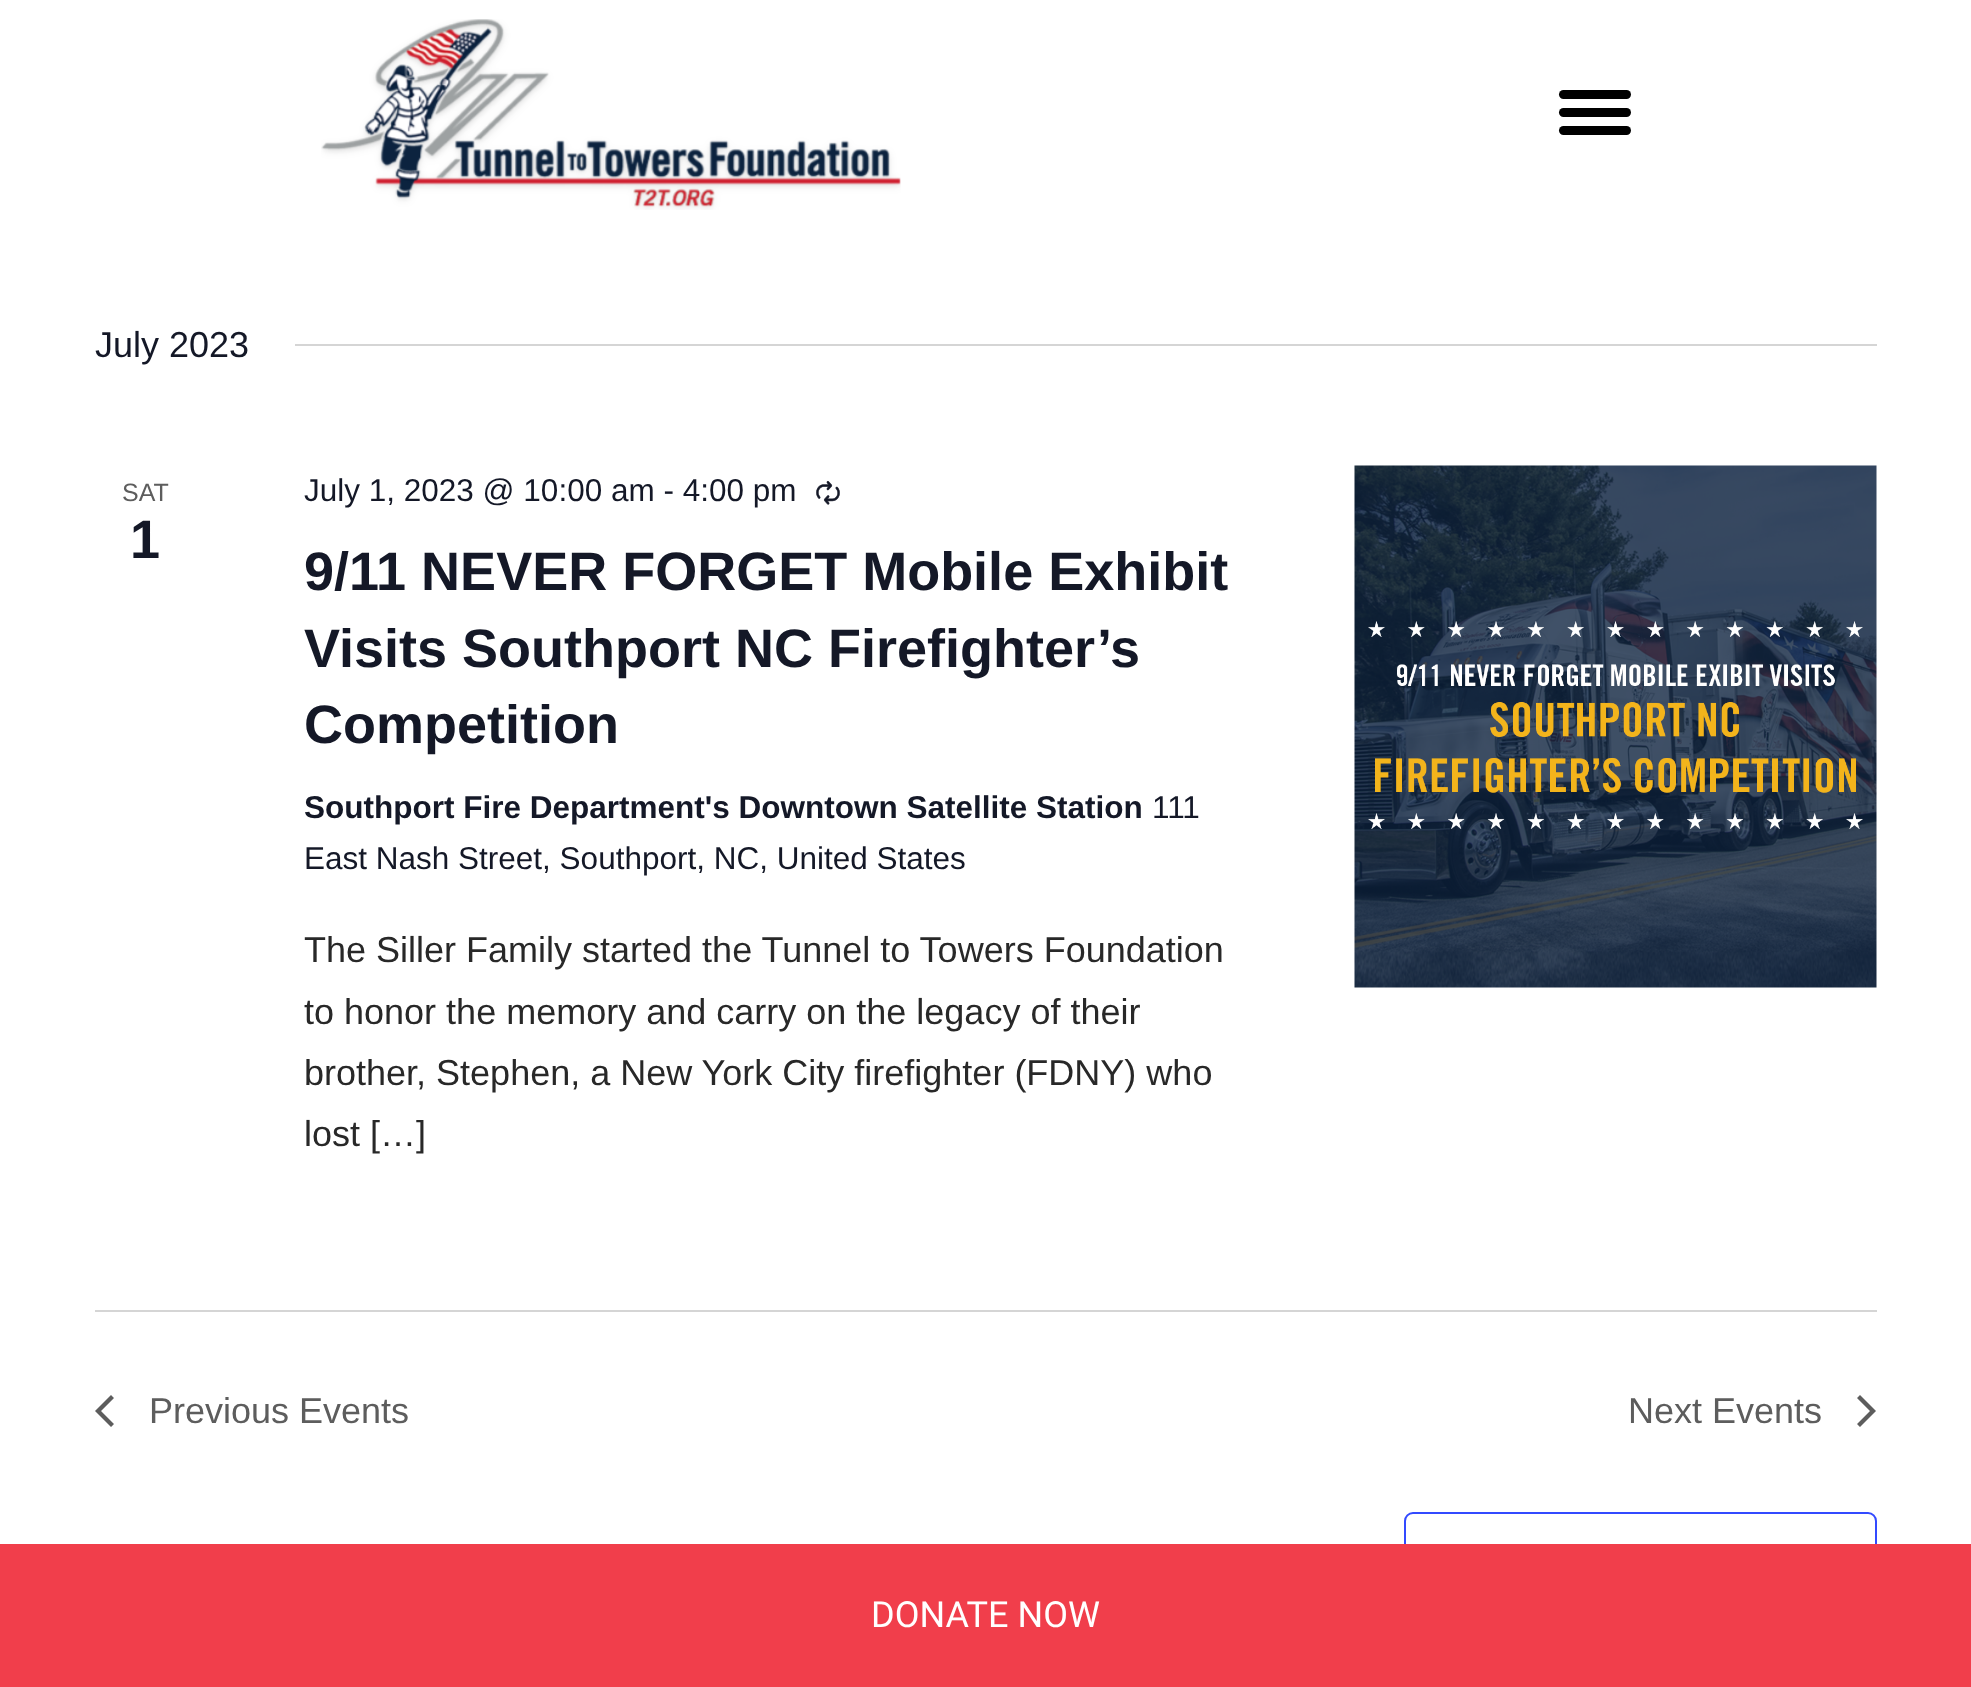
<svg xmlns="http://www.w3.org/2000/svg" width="1971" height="1687">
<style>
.a{font:36px Liberation Sans;fill:#141827}
.b{font:25px Liberation Sans;fill:#5d5d5d}
.c{font:bold 54px Liberation Sans;fill:#141827}
.d{font:31.5px Liberation Sans;fill:#141827}
.e{font:bold 31.5px Liberation Sans;fill:#141827}
.f{font:36px Liberation Sans;fill:#282828}
.g{font:36px Liberation Sans;fill:#5d5d5d}
.h{font:36px Roboto;fill:#fff}
</style>
<rect width="100%" height="100%" fill="#fff"/>
<image href="1.png" x="321" y="19" width="580" height="191"/>
<rect fill="#000" x="1559" y="108" width="72" height="9" rx="4.5"/>
<rect fill="#000" x="1559" y="90" width="72" height="9" rx="4.5"/>
<rect fill="#000" x="1559" y="126" width="72" height="9" rx="4.5"/>
<path fill="#d5d5d5" d="M295 344h1582v2H295z"/>
<image href="2.png" x="816" y="480" width="24" height="25"/>
<image href="3.png" x="1354" y="465" width="523" height="523"/>
<path fill="#d5d5d5" d="M95 1310h1782v2H95z"/>
<path fill="#5d5d5d" d="M114 1424l-3 3l-16-16l16-16l3 3l-13 13z"/>
<path fill="#5d5d5d" d="M1857 1398l3-3l16 16l-16 16l-3-3l13-13z"/>
<rect fill="none" stroke="#334aff" stroke-width="2" x="1405" y="1513" width="471" height="104" rx="8"/>
<path fill="#f13e4b" d="M0 1544h1971v143H0z"/>
<text class="a" x="95" y="357">July 2023</text>
<text class="b" x="122" y="501">SAT</text>
<text class="c" x="130" y="558">1</text>
<text class="d" x="304" y="501">July 1, 2023 @ 10:00 am - 4:00 pm</text>
<text class="c" x="304" y="590">9/11 NEVER FORGET Mobile Exhibit</text>
<text class="c" x="304" y="667">Visits Southport NC Firefighter’s</text>
<text class="c" x="304" y="743">Competition</text>
<text class="e" x="304" y="818">Southport Fire Department's Downtown Satellite Station</text>
<text class="d" x="1152" y="818">111</text>
<text class="d" x="304" y="869">East Nash Street, Southport, NC, United States</text>
<text class="f" x="304" y="962">The Siller Family started the Tunnel to Towers Foundation</text>
<text class="f" x="304" y="1024">to honor the memory and carry on the legacy of their</text>
<text class="f" x="304" y="1085">brother, Stephen, a New York City firefighter (FDNY) who</text>
<text class="f" x="304" y="1146">lost […]</text>
<text class="g" x="149" y="1423">Previous Events</text>
<text class="g" x="1628" y="1423">Next Events</text>
<text class="h" x="871" y="1627">DONATE NOW</text>
</svg>
